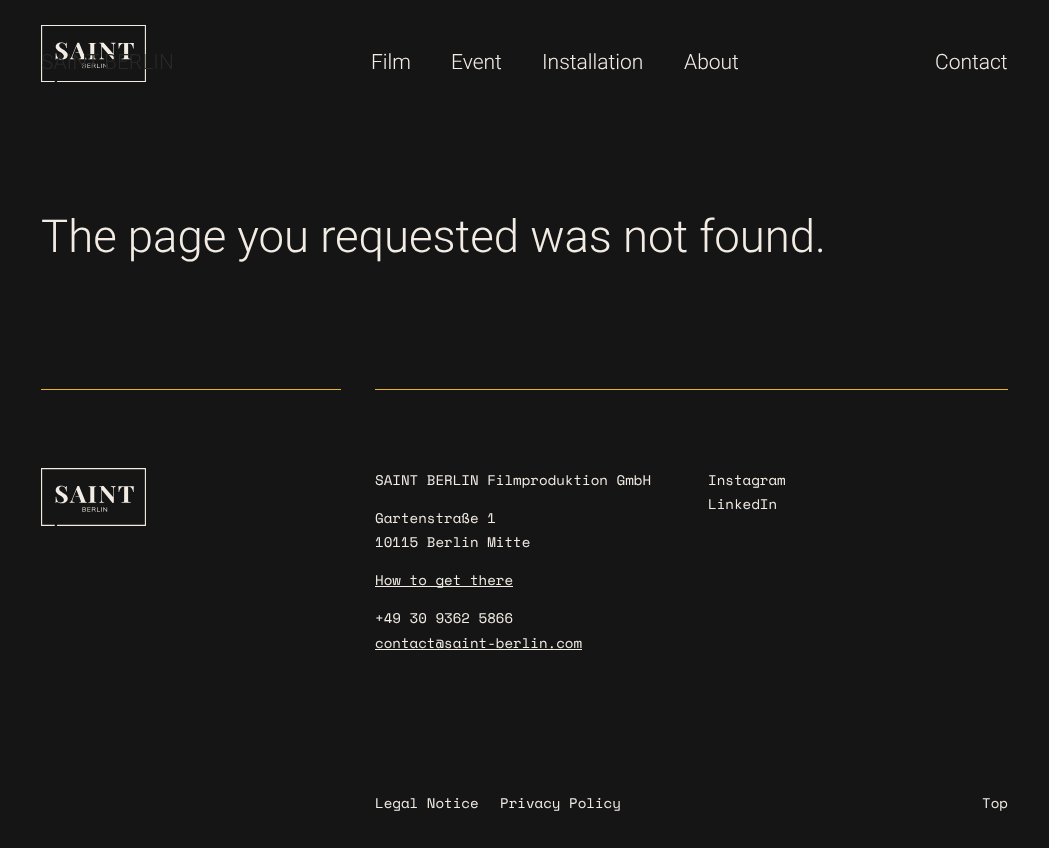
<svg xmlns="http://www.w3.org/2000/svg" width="1049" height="848">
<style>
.a{font:300 21px Roboto;fill:#292827}
.b{font:300 21px Roboto;fill:#f2ece4}
.c{font:300 45.5px Roboto;fill:#f2ece4}
.d{font:14.1px Space Mono;fill:#f2ece4}
</style>
<rect width="100%" height="100%" fill="#151515"/>
<image href="1.png" x="41" y="25" width="105" height="57"/>
<path fill="#e4b529" d="M41 389h300v1H41z"/>
<image href="2.png" x="41" y="468" width="105" height="58"/>
<path fill="#e4b529" d="M375 389h633v1H375z"/>
<path fill="#f2ece4" d="M375 586h138v1H375z"/>
<path fill="#f2ece4" d="M375 649h207v1H375z"/>
<text class="a" x="41" y="69">SAINT BERLIN</text>
<text class="b" x="371" y="69">Film</text>
<text class="b" x="451" y="69">Event</text>
<text class="b" x="542" y="69">Installation</text>
<text class="b" x="684" y="69">About</text>
<text class="b" x="935" y="69">Contact</text>
<text class="c" x="41" y="252">The page you requested was not found.</text>
<text class="d" x="375" y="485">SAINT BERLIN Filmproduktion GmbH</text>
<text class="d" x="375" y="523">Gartenstraße 1</text>
<text class="d" x="375" y="547">10115 Berlin Mitte</text>
<text class="d" x="375" y="585">How to get there</text>
<text class="d" x="375" y="623">+49 30 9362 5866</text>
<text class="d" x="375" y="648">contact@saint-berlin.com</text>
<text class="d" x="708" y="485">Instagram</text>
<text class="d" x="708" y="509">LinkedIn</text>
<text class="d" x="375" y="808">Legal Notice</text>
<text class="d" x="500" y="808">Privacy Policy</text>
<text class="d" x="982" y="808">Top</text>
</svg>
